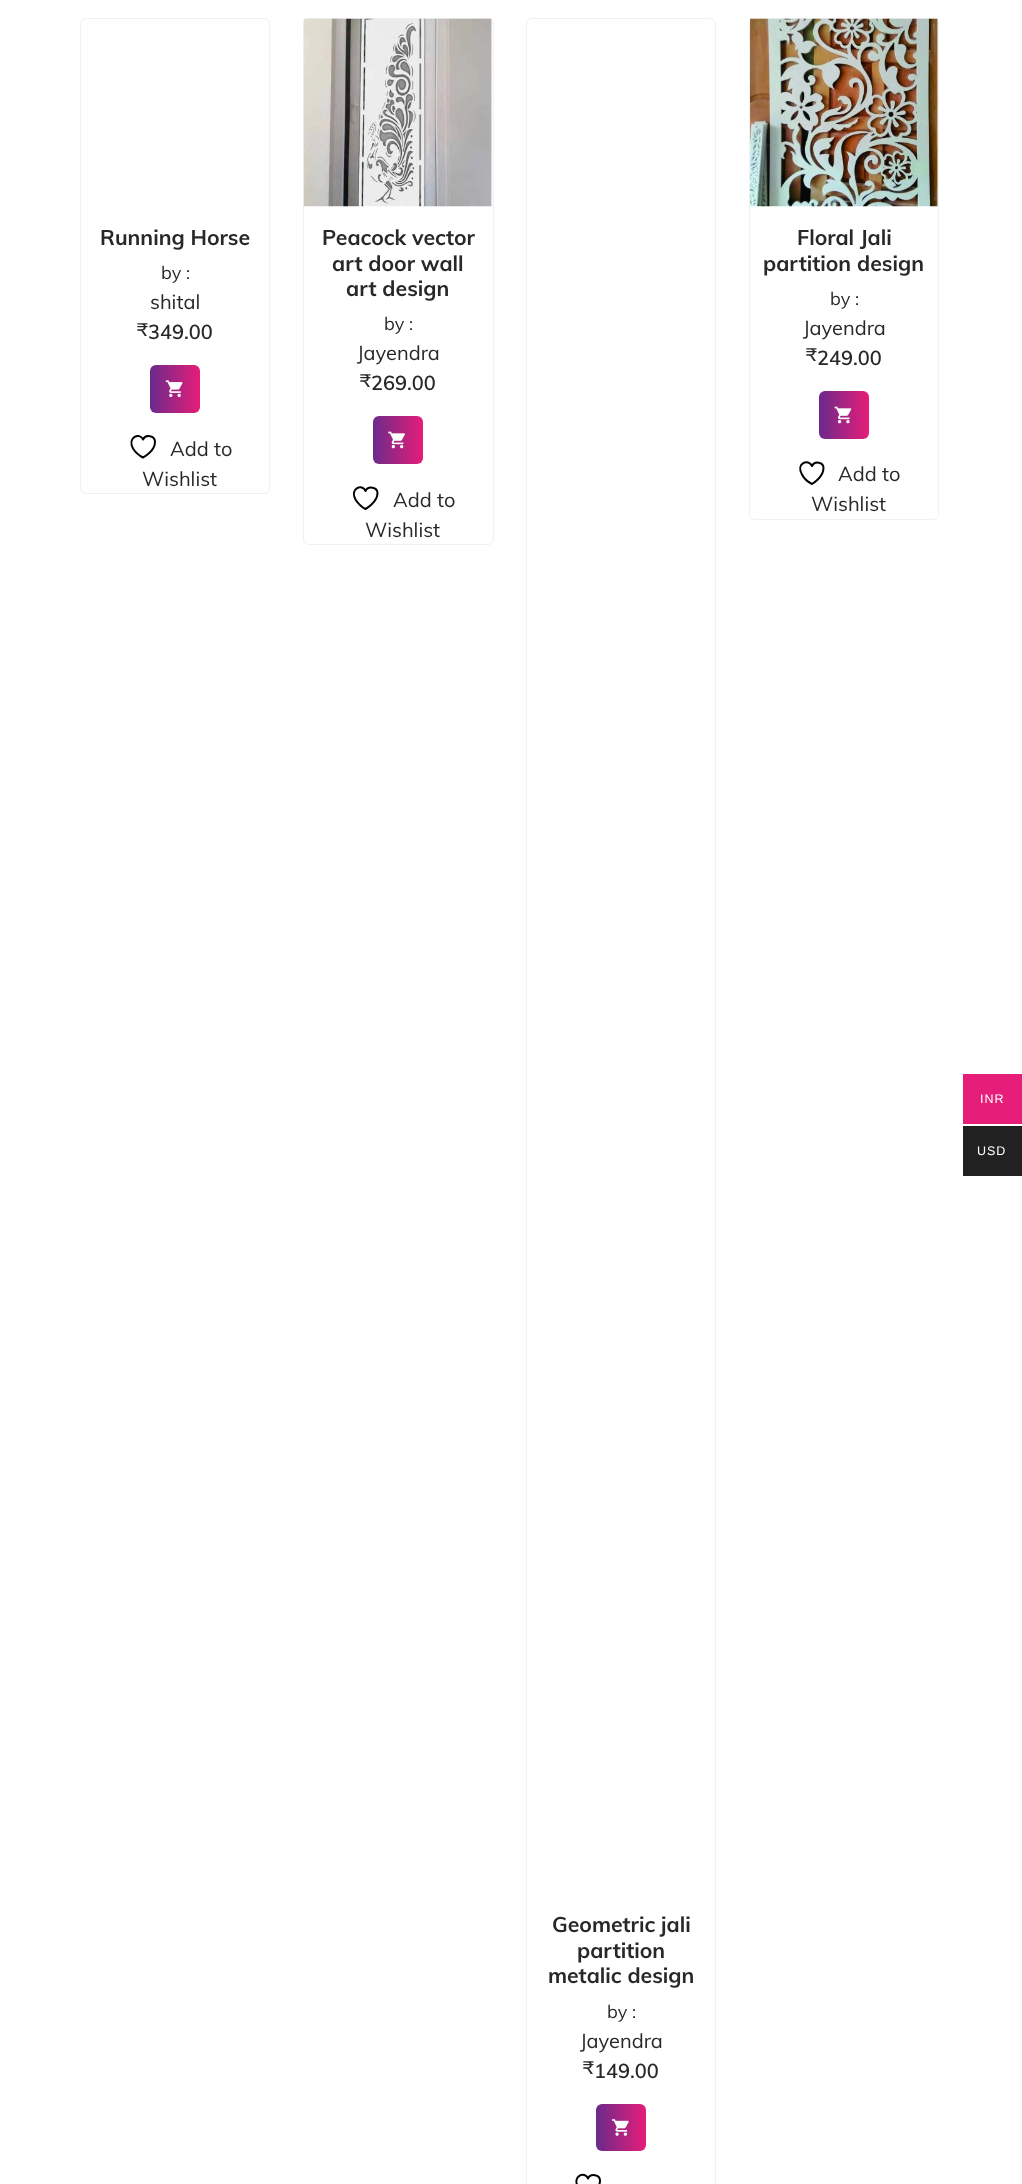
<svg xmlns="http://www.w3.org/2000/svg" width="1022" height="2184">
<style>
.a{font:bold 21.25px Muli;fill:#282828}
.b{font:18px Muli;fill:#282828}
.c{font:20px Muli;fill:#282828}
.d{font:600 18px Muli;fill:#282828}
.e{font:600 20px Muli;fill:#282828}
.f{font:12.5px Liberation Sans;letter-spacing:1px;fill:#fff}
</style>
<defs>
<linearGradient id="g1" gradientUnits="userSpaceOnUse" x1="150" y1="389" x2="200" y2="389"><stop offset="0" stop-color="#6b2a8b"/><stop offset="1" stop-color="#e61d79"/></linearGradient>
<linearGradient id="g2" gradientUnits="userSpaceOnUse" x1="373" y1="440" x2="423" y2="440"><stop offset="0" stop-color="#6b2a8b"/><stop offset="1" stop-color="#e61d79"/></linearGradient>
<linearGradient id="g3" gradientUnits="userSpaceOnUse" x1="819" y1="415" x2="869" y2="415"><stop offset="0" stop-color="#6b2a8b"/><stop offset="1" stop-color="#e61d79"/></linearGradient>
<linearGradient id="g4" gradientUnits="userSpaceOnUse" x1="596" y1="2128" x2="646" y2="2128"><stop offset="0" stop-color="#6b2a8b"/><stop offset="1" stop-color="#e61d79"/></linearGradient>
</defs>
<rect width="100%" height="100%" fill="#fff"/>
<rect fill="none" stroke="#f1f1f1" x="80.5" y="18.5" width="189" height="475" rx="5.5"/>
<rect fill="url(#g1)" x="150" y="365" width="50" height="48" rx="6"/>
<image href="1.png" x="165" y="380" width="18" height="18"/>
<path fill="none" stroke="#000" stroke-width="2" stroke-linecap="round" stroke-linejoin="round" d="M155 442c0-6.5-9.5-8-12-2.5c-3-7.5-16-2.5-10 9c2.5 4 6 7 10 9c0 0 12-6 12-15.5z"/>
<rect fill="none" stroke="#f1f1f1" x="303.5" y="18.5" width="190" height="526" rx="5.5"/>
<image href="2.png" x="303" y="18" width="189" height="189"/>
<rect fill="url(#g2)" x="373" y="416" width="50" height="48" rx="6"/>
<image href="3.png" x="388" y="431" width="17" height="18"/>
<path fill="none" stroke="#000" stroke-width="2" stroke-linecap="round" stroke-linejoin="round" d="M377.5 493c0-6-9.5-7.5-12-2c-3-7.5-16-3-10 8.5c2.5 4 6 7.5 10 9.5c0 0 12-6.5 12-16z"/>
<rect fill="none" stroke="#f1f1f1" x="749.5" y="18.5" width="189" height="501" rx="5.5"/>
<image href="4.png" x="750" y="18" width="188" height="189"/>
<rect fill="url(#g3)" x="819" y="391" width="50" height="48" rx="6"/>
<image href="5.png" x="834" y="406" width="18" height="18"/>
<path fill="none" stroke="#000" stroke-width="2" stroke-linecap="round" stroke-linejoin="round" d="M823.5 468c0-6-9-7.5-11.5-2c-3.5-7.5-16.5-3-10 8.5c2 4 6 7.5 10 9.5c0 0 11.5-6.5 11.5-16z"/>
<rect fill="none" stroke="#f1f1f1" x="526.5" y="18.5" width="189" height="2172" rx="5.5"/>
<rect fill="url(#g4)" x="596" y="2104" width="50" height="47" rx="6"/>
<image href="6.png" x="612" y="2119" width="17" height="17"/>
<path fill="none" stroke="#000" stroke-width="2" stroke-linecap="round" stroke-linejoin="round" d="M600 2180.5c0-6-9.5-7.5-12-2c-3-7.5-16-3-10 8.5c2.5 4 6 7.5 10 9.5c0 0 12-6.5 12-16z"/>
<path fill="#e61d79" d="M963 1074h59v50H963z"/>
<path fill="#212121" d="M963 1126h59v50H963z"/>
<text class="a" x="100" y="245">Running Horse</text>
<text class="b" x="161" y="279">by :</text>
<text class="c" x="150" y="309">shital</text>
<text class="d" x="137" y="336">₹</text>
<text class="e" x="148" y="339">349.00</text>
<text class="c" x="170" y="456">Add to</text>
<text class="c" x="142" y="486">Wishlist</text>
<text class="a" x="322" y="245">Peacock vector</text>
<text class="a" x="332" y="271">art door wall</text>
<text class="a" x="346" y="296">art design</text>
<text class="b" x="384" y="330">by :</text>
<text class="c" x="357" y="360">Jayendra</text>
<text class="d" x="360" y="387">₹</text>
<text class="e" x="371" y="390">269.00</text>
<text class="c" x="393" y="507">Add to</text>
<text class="c" x="365" y="537">Wishlist</text>
<text class="a" x="797" y="245">Floral Jali</text>
<text class="a" x="763" y="271">partition design</text>
<text class="b" x="830" y="305">by :</text>
<text class="c" x="803" y="335">Jayendra</text>
<text class="d" x="806" y="361">₹</text>
<text class="e" x="817" y="365">249.00</text>
<text class="c" x="838" y="481">Add to</text>
<text class="c" x="811" y="511">Wishlist</text>
<text class="a" x="552" y="1932">Geometric jali</text>
<text class="a" x="577" y="1958">partition</text>
<text class="a" x="548" y="1983">metalic design</text>
<text class="b" x="607" y="2018">by :</text>
<text class="c" x="580" y="2048">Jayendra</text>
<text class="d" x="583" y="2074">₹</text>
<text class="e" x="594" y="2078">149.00</text>
<text class="f" x="980" y="1103">INR</text>
<text class="f" x="977" y="1155">USD</text>
</svg>
